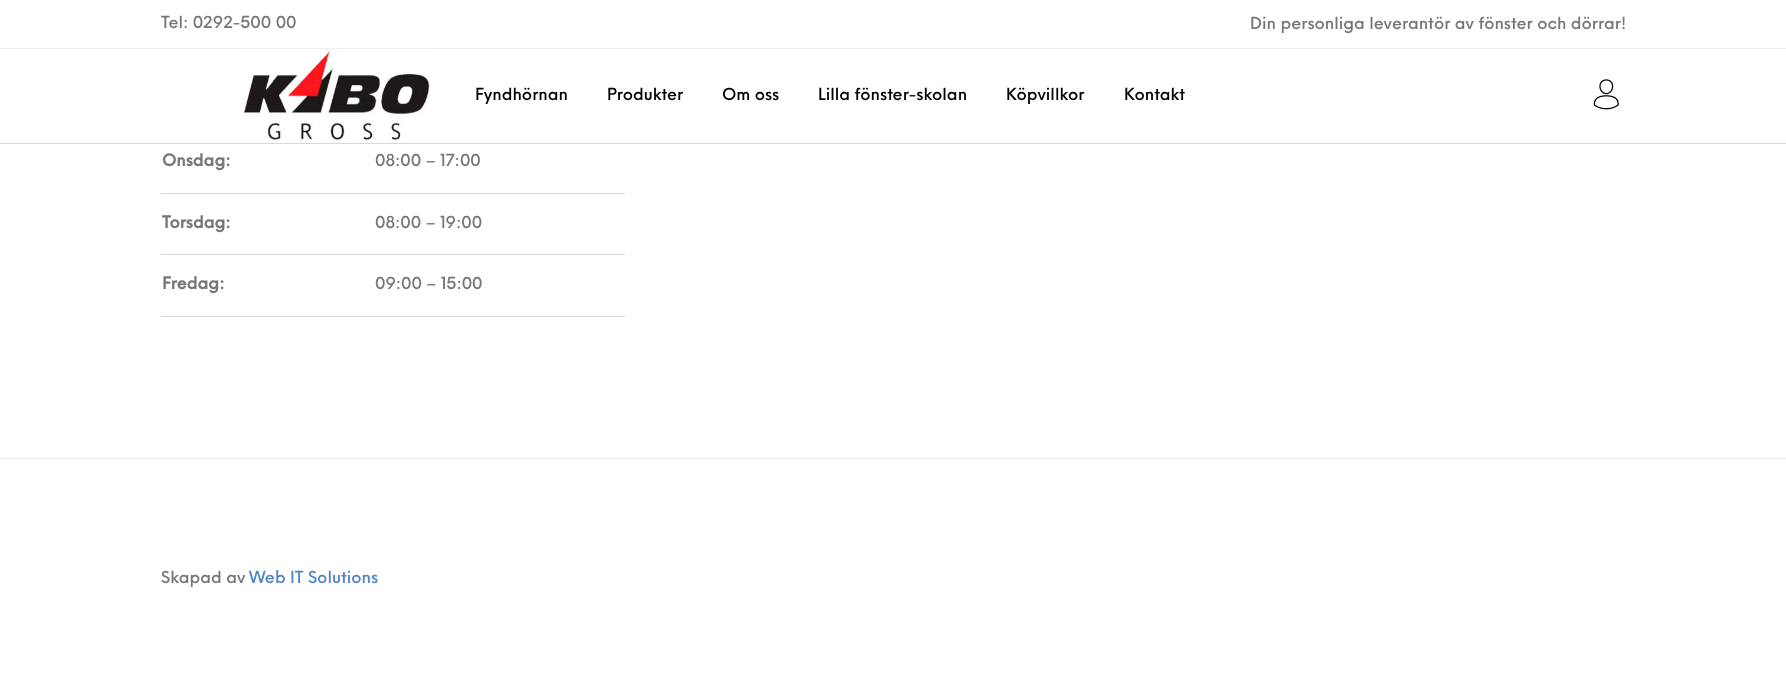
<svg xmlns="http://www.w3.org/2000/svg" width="1786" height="691">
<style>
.a{font:500 16.25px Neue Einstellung;fill:#777}
.b{font:500 16.25px Neue Einstellung;fill:#000}
.c{font:bold 16.25px Neue Einstellung;fill:#777}
.d{font:500 16.25px Neue Einstellung;fill:#5285c4}
</style>
<rect width="100%" height="100%" fill="#fff"/>
<path fill="#ebebeb" d="M0 48h1786v1H0z"/>
<image href="1.png" x="243" y="48" width="192" height="95"/>
<image href="2.png" x="1593" y="79" width="26" height="31"/>
<path fill="#d9d9d9" d="M0 143h1786v1H0z"/>
<path fill="#d9d9d9" d="M161 193h464v1H161z"/>
<path fill="#d9d9d9" d="M161 254h464v1H161z"/>
<path fill="#d9d9d9" d="M161 316h464v1H161z"/>
<path fill="#ebebeb" d="M0 458h1786v1H0z"/>
<text class="a" x="161" y="28">Tel: 0292-500 00</text>
<text class="a" x="1250" y="29">Din personliga leverantör av fönster och dörrar!</text>
<text class="b" x="475" y="100">Fyndhörnan</text>
<text class="b" x="607" y="100">Produkter</text>
<text class="b" x="722" y="100">Om oss</text>
<text class="b" x="818" y="100">Lilla fönster-skolan</text>
<text class="b" x="1006" y="100">Köpvillkor</text>
<text class="b" x="1124" y="100">Kontakt</text>
<text class="c" x="162" y="166">Onsdag:</text>
<text class="a" x="375" y="166">08:00 – 17:00</text>
<text class="c" x="162" y="228">Torsdag:</text>
<text class="a" x="375" y="228">08:00 – 19:00</text>
<text class="c" x="162" y="289">Fredag:</text>
<text class="a" x="375" y="289">09:00 – 15:00</text>
<text class="a" x="161" y="583">Skapad av</text>
<text class="d" x="249" y="583">Web IT Solutions</text>
</svg>
